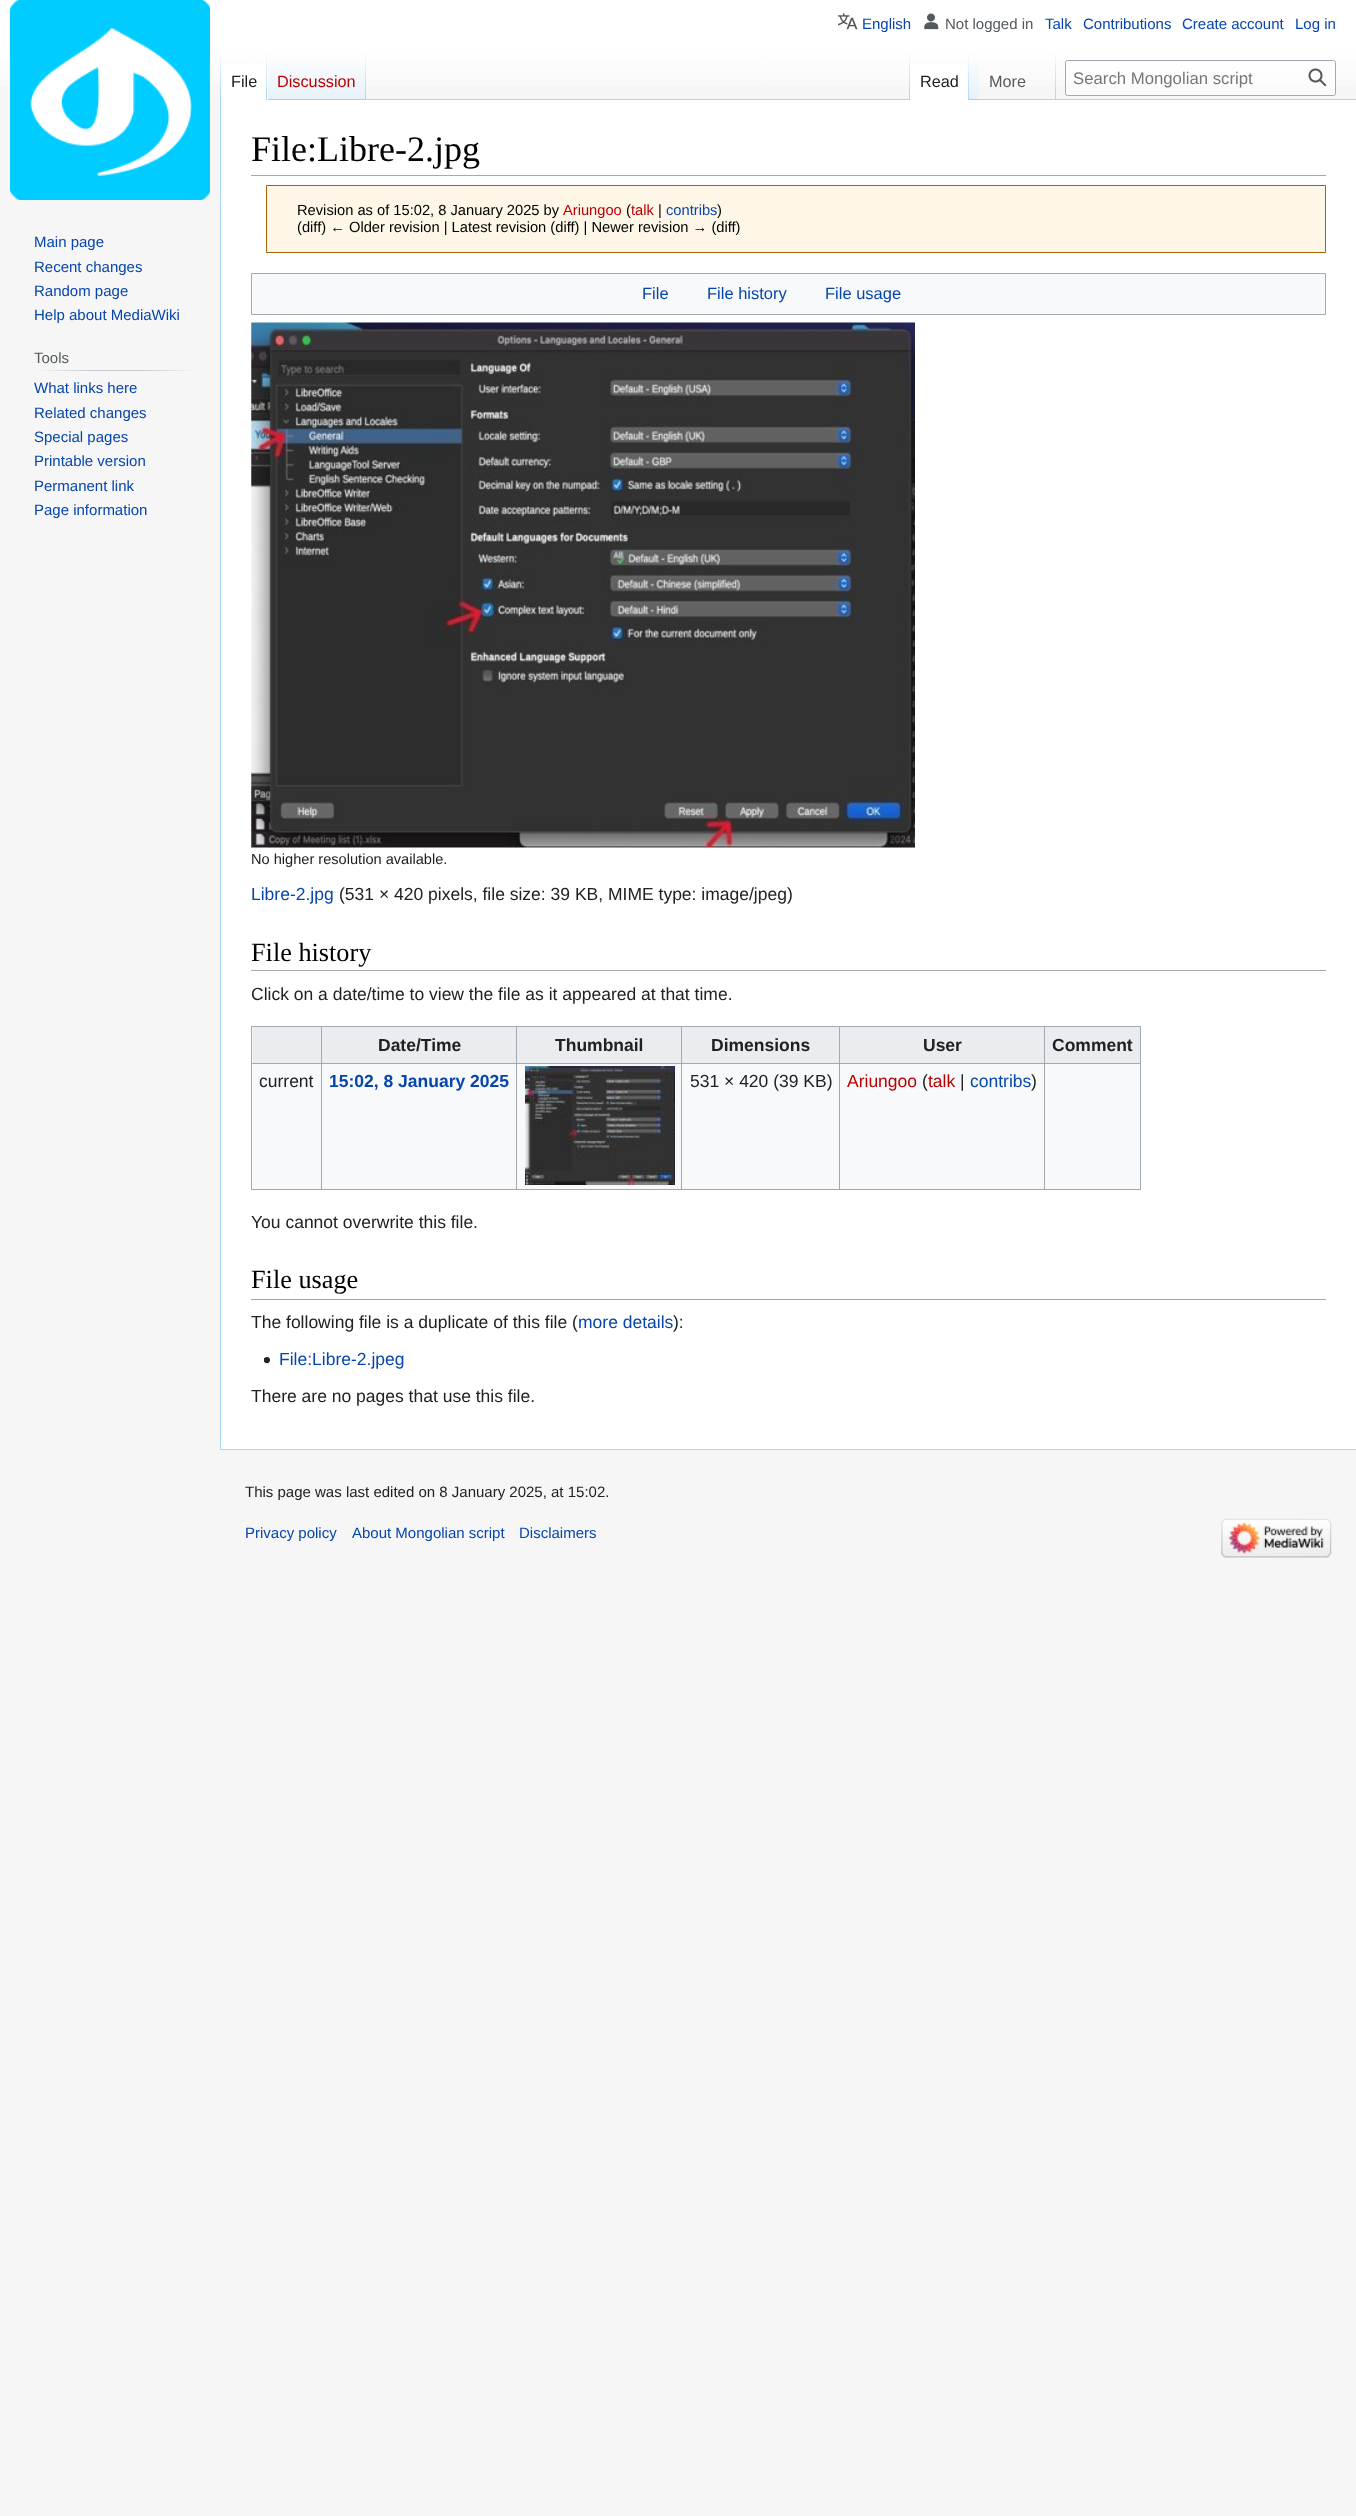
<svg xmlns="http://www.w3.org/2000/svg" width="1356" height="2516">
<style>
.a{font:15px Liberation Sans;fill:#0645ad}
.b{font:15px Liberation Sans;fill:#54595d}
.c{font:16.25px Liberation Sans;fill:#202122}
.d{font:16.25px Liberation Sans;fill:#ba0000}
.e{font:16.25px Liberation Sans;fill:#54595d}
.f{font:16.75px Liberation Sans;fill:#72777d}
.g{font:36px Liberation Serif;fill:#000}
.h{font:14.7px Liberation Sans;fill:#000}
.i{font:14.7px Liberation Sans;fill:#ba0000}
.j{font:14.7px Liberation Sans;fill:#0645ad}
.k{font:16.5px Liberation Sans;fill:#0645ad}
.l{font:14.6px Liberation Sans;fill:#202122}
.m{font:17.5px Liberation Sans;fill:#0645ad}
.n{font:17.5px Liberation Sans;fill:#202122}
.o{font:26.25px Liberation Serif;fill:#000}
.p{font:bold 17.5px Liberation Sans;fill:#202122}
.q{font:bold 17.5px Liberation Sans;fill:#0645ad}
.r{font:17.5px Liberation Sans;fill:#ba0000}
.s{font:15px Liberation Sans;fill:#202122}
</style>
<defs>
<linearGradient id="g1" gradientUnits="userSpaceOnUse" x1="678" y1="0" x2="678" y2="100"><stop offset="0.5" stop-color="#fff"/><stop offset="1" stop-color="#f6f6f6"/></linearGradient>
<linearGradient id="g2" gradientUnits="userSpaceOnUse" x1="221" y1="50" x2="221" y2="100"><stop offset="0" stop-color="#a7d7f9" stop-opacity="0"/><stop offset="1" stop-color="#a7d7f9"/></linearGradient>
<linearGradient id="g3" gradientUnits="userSpaceOnUse" x1="267" y1="50" x2="267" y2="100"><stop offset="0" stop-color="#fff"/><stop offset="1" stop-color="#a7d7f9"/></linearGradient>
<linearGradient id="g4" gradientUnits="userSpaceOnUse" x1="317" y1="100" x2="317" y2="50"><stop offset="0" stop-color="#77c1f6"/><stop offset="0.03" stop-color="#e8f2f8"/><stop offset="1" stop-color="#fff"/></linearGradient>
<linearGradient id="g5" gradientUnits="userSpaceOnUse" x1="366" y1="50" x2="366" y2="100"><stop offset="0" stop-color="#a7d7f9" stop-opacity="0"/><stop offset="1" stop-color="#a7d7f9"/></linearGradient>
<linearGradient id="g6" gradientUnits="userSpaceOnUse" x1="909" y1="50" x2="909" y2="100"><stop offset="0" stop-color="#a7d7f9" stop-opacity="0"/><stop offset="1" stop-color="#a7d7f9"/></linearGradient>
<linearGradient id="g7" gradientUnits="userSpaceOnUse" x1="968" y1="50" x2="968" y2="100"><stop offset="0" stop-color="#fff"/><stop offset="1" stop-color="#a7d7f9"/></linearGradient>
<linearGradient id="g8" gradientUnits="userSpaceOnUse" x1="974" y1="100" x2="974" y2="50"><stop offset="0" stop-color="#77c1f6"/><stop offset="0.03" stop-color="#e8f2f8"/><stop offset="1" stop-color="#fff"/></linearGradient>
<linearGradient id="g9" gradientUnits="userSpaceOnUse" x1="1056" y1="50" x2="1056" y2="100"><stop offset="0" stop-color="#a7d7f9" stop-opacity="0"/><stop offset="1" stop-color="#a7d7f9"/></linearGradient>
<linearGradient id="g10" gradientUnits="userSpaceOnUse" x1="34" y1="371" x2="198" y2="371"><stop offset="0" stop-color="#f6f6f6"/><stop offset="0.33" stop-color="#c8ccd1"/><stop offset="0.66" stop-color="#c8ccd1"/><stop offset="1" stop-color="#f6f6f6"/></linearGradient>
</defs>
<rect width="100%" height="100%" fill="#f6f6f6"/>
<path fill="url(#g1)" d="M0 0h1356v86H0z"/>
<image href="1.png" x="838" y="13" width="20" height="17"/>
<image href="2.png" x="924" y="13" width="15" height="17"/>
<path fill="#a7d7f9" d="M220 1449h1136v1H220z"/>
<path fill="#a7d7f9" d="M220 99h1v1351H220z"/>
<path fill="url(#g2)" d="M220 50h1v50H220z"/>
<path fill="#fff" d="M221 64h47v36H221z"/>
<path fill="url(#g3)" d="M266 50h1v50H266z"/>
<path fill="url(#g4)" d="M268 57h98v43H268z"/>
<path fill="url(#g5)" d="M365 50h1v50H365z"/>
<path fill="#a7d7f9" d="M366 99h990v1H366z"/>
<path fill="url(#g6)" d="M909 50h1v50H909z"/>
<path fill="#fff" d="M910 64h58v36H910z"/>
<path fill="url(#g7)" d="M968 50h1v50H968z"/>
<path fill="url(#g8)" d="M969 57h10v43H969z"/>
<path fill="url(#g9)" d="M1055 50h1v50H1055z"/>
<rect fill="#ffffff80" stroke="#a2a9b1" x="1065.5" y="60.5" width="270" height="35" rx="2"/>
<image href="3.png" x="1308" y="68" width="19" height="19"/>
<image href="4.png" x="10" y="0" width="200" height="200"/>
<path fill="url(#g10)" d="M34 370h164v1H34z"/>
<path fill="#fff" d="M221 100h1135v1349H221z"/>
<path fill="#a2a9b1" d="M251 175h1075v1H251z"/>
<path fill="#fef6e7" stroke="#a66200" d="M266.5 185.5h1059v67H266.5z"/>
<path fill="#f8f9fa" stroke="#a2a9b1" d="M251.5 273.5h1074v41H251.5z"/>
<image href="5.png" x="251" y="322" width="664" height="526"/>
<path fill="#a2a9b1" d="M251 970h1075v1H251z"/>
<path fill="#f8f9fa" d="M252 1027h888v162H252z"/>
<path fill="#a2a9b1" d="M251 1026h890v1H251z"/>
<path fill="#a2a9b1" d="M1140 1026h1v164H1140z"/>
<path fill="#a2a9b1" d="M251 1189h890v1H251z"/>
<path fill="#a2a9b1" d="M251 1026h1v164H251z"/>
<path fill="#eaecf0" d="M253 1027h68v36H253z"/>
<path fill="#eaecf0" d="M322 1027h194v36H322z"/>
<path fill="#a2a9b1" d="M1044 1063h97v1H1044z"/>
<path fill="#a2a9b1" d="M1044 1063h1v127H1044z"/>
<path fill="#a2a9b1" d="M839 1063h206v1H839z"/>
<path fill="#a2a9b1" d="M839 1063h1v127H839z"/>
<path fill="#a2a9b1" d="M681 1063h159v1H681z"/>
<path fill="#a2a9b1" d="M681 1063h1v127H681z"/>
<path fill="#a2a9b1" d="M516 1063h167v1H516z"/>
<path fill="#a2a9b1" d="M516 1063h1v127H516z"/>
<path fill="#a2a9b1" d="M321 1063h197v1H321z"/>
<path fill="#a2a9b1" d="M321 1063h1v127H321z"/>
<path fill="#a2a9b1" d="M251 1063h72v1H251z"/>
<path fill="#a2a9b1" d="M321 1026h1v38H321z"/>
<path fill="#eaecf0" d="M517 1027h322v36H517z"/>
<path fill="#a2a9b1" d="M516 1026h1v38H516z"/>
<path fill="#a2a9b1" d="M681 1026h1v38H681z"/>
<path fill="#eaecf0" d="M840 1027h204v36H840z"/>
<path fill="#a2a9b1" d="M839 1026h1v38H839z"/>
<path fill="#eaecf0" d="M1045 1027h95v36H1045z"/>
<path fill="#a2a9b1" d="M1044 1026h1v38H1044z"/>
<image href="6.png" x="525" y="1066" width="150" height="119"/>
<image href="7.png" x="525" y="1066" width="150" height="1"/>
<path fill="#a2a9b1" d="M251 1299h1075v1H251z"/>
<image href="8.png" x="264" y="1357" width="6" height="7"/>
<image href="9.png" x="1221" y="1518" width="111" height="40"/>
<text class="a" x="862" y="29">English</text>
<text class="b" x="945" y="29">Not logged in</text>
<text class="a" x="1045" y="29">Talk</text>
<text class="a" x="1083" y="29">Contributions</text>
<text class="a" x="1182" y="29">Create account</text>
<text class="a" x="1295" y="29">Log in</text>
<text class="c" x="231" y="87">File</text>
<text class="d" x="277" y="87">Discussion</text>
<text class="c" x="920" y="87">Read</text>
<text class="e" x="989" y="87">More</text>
<text class="f" x="1073" y="84">Search Mongolian script</text>
<text class="a" x="34" y="247">Main page</text>
<text class="a" x="34" y="272">Recent changes</text>
<text class="a" x="34" y="296">Random page</text>
<text class="a" x="34" y="320">Help about MediaWiki</text>
<text class="b" x="34" y="363">Tools</text>
<text class="a" x="34" y="393">What links here</text>
<text class="a" x="34" y="418">Related changes</text>
<text class="a" x="34" y="442">Special pages</text>
<text class="a" x="34" y="466">Printable version</text>
<text class="a" x="34" y="491">Permanent link</text>
<text class="a" x="34" y="515">Page information</text>
<text class="g" x="251" y="161">File:Libre-2.jpg</text>
<text class="h" x="297" y="215">Revision as of 15:02, 8 January 2025 by</text>
<text class="i" x="563" y="215">Ariungoo</text>
<text class="h" x="626" y="215">(</text>
<text class="i" x="631" y="215">talk</text>
<text class="h" x="658" y="215">|</text>
<text class="j" x="666" y="215">contribs</text>
<text class="h" x="717" y="215">)</text>
<text class="h" x="297" y="232">(diff) ← Older revision | Latest revision (diff) | Newer revision → (diff)</text>
<text class="k" x="642" y="299">File</text>
<text class="k" x="707" y="299">File history</text>
<text class="k" x="825" y="299">File usage</text>
<text class="l" x="251" y="864">No higher resolution available.</text>
<text class="m" x="251" y="900">Libre-2.jpg</text>
<text class="n" x="339" y="900">(531 × 420 pixels, file size: 39 KB, MIME type: image/jpeg)</text>
<text class="o" x="251" y="961">File history</text>
<text class="n" x="251" y="1000">Click on a date/time to view the file as it appeared at that time.</text>
<text class="p" x="378" y="1051">Date/Time</text>
<text class="p" x="555" y="1051">Thumbnail</text>
<text class="p" x="711" y="1051">Dimensions</text>
<text class="p" x="923" y="1051">User</text>
<text class="p" x="1052" y="1051">Comment</text>
<text class="n" x="259" y="1087">current</text>
<text class="q" x="329" y="1087">15:02, 8 January 2025</text>
<text class="n" x="690" y="1087">531 × 420 (39 KB)</text>
<text class="r" x="847" y="1087">Ariungoo</text>
<text class="n" x="922" y="1087">(</text>
<text class="r" x="928" y="1087">talk</text>
<text class="n" x="960" y="1087">|</text>
<text class="m" x="970" y="1087">contribs</text>
<text class="n" x="1031" y="1087">)</text>
<text class="n" x="251" y="1228">You cannot overwrite this file.</text>
<text class="o" x="251" y="1288">File usage</text>
<text class="n" x="251" y="1328">The following file is a duplicate of this file (</text>
<text class="m" x="578" y="1328">more details</text>
<text class="n" x="673" y="1328">):</text>
<text class="m" x="279" y="1365">File:Libre-2.jpeg</text>
<text class="n" x="251" y="1402">There are no pages that use this file.</text>
<text class="s" x="245" y="1497">This page was last edited on 8 January 2025, at 15:02.</text>
<text class="a" x="245" y="1538">Privacy policy</text>
<text class="a" x="352" y="1538">About Mongolian script</text>
<text class="a" x="519" y="1538">Disclaimers</text>
</svg>
